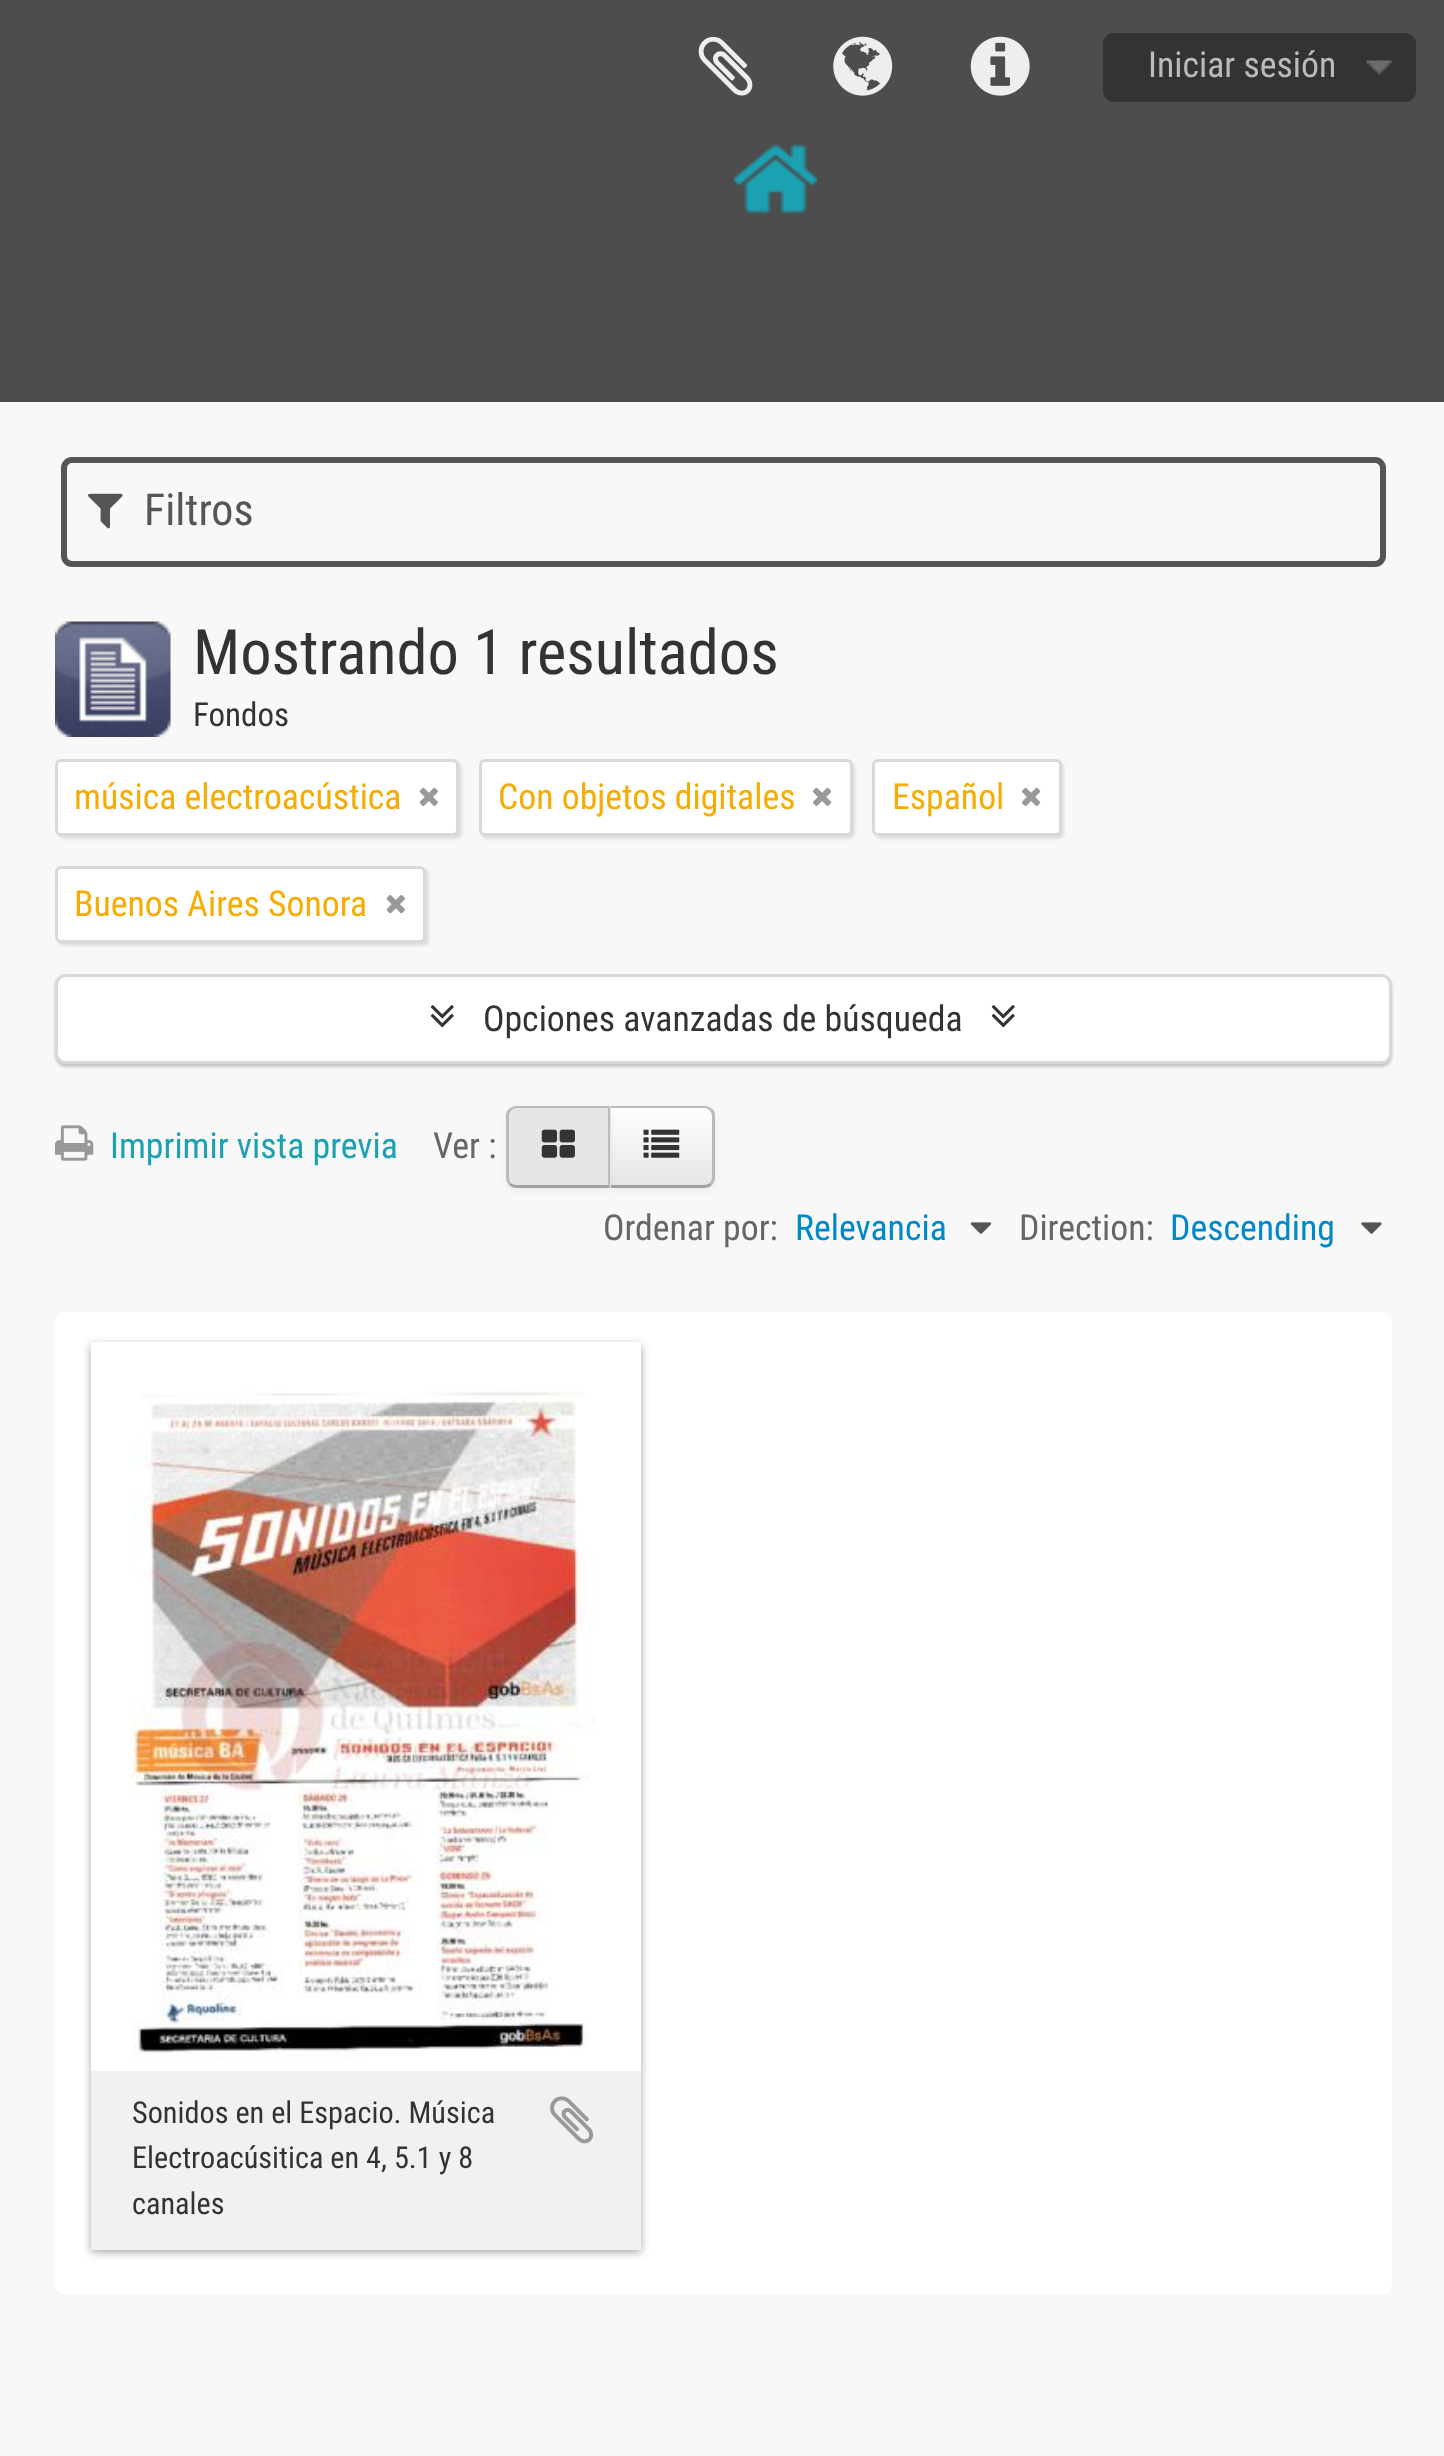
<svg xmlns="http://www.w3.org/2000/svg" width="1444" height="2456">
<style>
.a{font:35.75px Roboto Condensed;fill:#bbb}
.b{font:44px Roboto Condensed;fill:#555}
.c{font:62.5px Roboto Condensed;fill:#333}
.d{font:33px Roboto Condensed;fill:#333}
.e{font:35.75px Roboto Condensed;fill:#f6ac00}
.f{font:35.75px Roboto Condensed;fill:#333}
.g{font:35.75px Roboto Condensed;fill:#1ba1b2}
.h{font:35.75px Roboto Condensed;fill:#666}
.i{font:35.75px Roboto Condensed;fill:#08c}
.j{font:30.25px Roboto Condensed;fill:#333}
</style>
<defs>
<clipPath id="clip1"><path d="M608 1106h96c6 0 11 5 11 11v60c0 6-5 11-11 11h-96z"/></clipPath>
<linearGradient id="g1" gradientUnits="userSpaceOnUse" x1="661" y1="1108" x2="661" y2="1185"><stop offset="0" stop-color="#fff"/><stop offset="1" stop-color="#e6e6e6"/></linearGradient>
</defs>
<rect width="100%" height="100%" fill="#f8f8f8"/>
<path fill="#4d4d4d" d="M0 0h1444v402H0z"/>
<image href="1.png" x="698" y="36" width="55" height="60"/>
<image href="2.png" x="833" y="36" width="60" height="60"/>
<image href="3.png" x="970" y="36" width="60" height="60"/>
<rect fill="#333" x="1103" y="33" width="313" height="69" rx="11"/>
<image href="4.png" x="1366" y="60" width="27" height="15"/>
<image href="5.png" x="734" y="144" width="83" height="70"/>
<rect fill="none" stroke="#555" stroke-width="6" x="64" y="460" width="1319" height="104" rx="8"/>
<image href="6.png" x="88" y="493" width="35" height="36"/>
<image href="7.png" x="55" y="621" width="116" height="116"/>
<rect fill="#0000001a" filter="blur(1.5px)" x="58" y="762" width="404" height="77" rx="6"/>
<rect fill="#fff" stroke="#d9d9d9" stroke-width="3" x="56.5" y="760.5" width="401" height="74" rx="4.5"/>
<image href="8.png" x="419" y="787" width="19" height="19"/>
<rect fill="#0000001a" filter="blur(1.5px)" x="481" y="762" width="374" height="77" rx="6"/>
<rect fill="#fff" stroke="#d9d9d9" stroke-width="3" x="480.5" y="760.5" width="371" height="74" rx="4.5"/>
<image href="9.png" x="813" y="787" width="19" height="19"/>
<rect fill="#0000001a" filter="blur(1.5px)" x="875" y="762" width="189" height="77" rx="6"/>
<rect fill="#fff" stroke="#d9d9d9" stroke-width="3" x="873.5" y="760.5" width="187" height="74" rx="4.5"/>
<image href="9.png" x="1022" y="787" width="19" height="19"/>
<rect fill="#0000001a" filter="blur(1.5px)" x="58" y="869" width="371" height="77" rx="6"/>
<rect fill="#fff" stroke="#d9d9d9" stroke-width="3" x="56.5" y="867.5" width="368" height="74" rx="4.5"/>
<image href="10.png" x="386" y="895" width="19" height="19"/>
<rect fill="#00000033" filter="blur(1.5px)" x="55" y="976" width="1337" height="91" rx="11"/>
<rect fill="#fff" stroke="#d9d9d9" stroke-width="3" x="56.5" y="975.5" width="1334" height="87" rx="9.5"/>
<image href="11.png" x="430" y="1005" width="24" height="23"/>
<image href="11.png" x="991" y="1005" width="24" height="23"/>
<image href="12.png" x="55" y="1125" width="39" height="36"/>
<rect fill="#0000000d" filter="blur(3px)" x="608" y="1108" width="107" height="83" rx="11"/>
<g clip-path="url(#clip1)">
<path fill="url(#g1)" d="M611 1108h104v77H611z"/>
</g>
<path fill="#bbb" d="M712 1109c-2-2-5-3-8-3h-96l2 2h94c3 0 5 1 6 3z"/>
<path fill="#bbb" d="M712 1109c2 1 3 4 3 7v61c0 3-1 6-3 8l-2-2c1-1 2-3 2-6v-61c0-2-1-4-2-5z"/>
<path fill="#a2a2a2" d="M608 1188h96c3 0 6-1 8-3l-2-2c-2 1-4 2-6 2h-93z"/>
<rect fill="#0000000d" filter="blur(3px)" x="506" y="1108" width="105" height="83" rx="11"/>
<path fill="#e6e6e6" d="M517 1106h94v82h-94c-6 0-11-5-11-11v-60c0-6 5-11 11-11z"/>
<path fill="#bbb" d="M517 1106c-3 0-6 1-8 3l2 2c1-2 3-3 6-3h91l2-2z"/>
<path fill="#bbb" d="M610 1188v-82l-2 2v77z"/>
<path fill="#a2a2a2" d="M517 1188h93l-2-3h-91c-3 0-5-1-6-2l-2 2c2 2 5 3 8 3z"/>
<path fill="#bbb" d="M506 1116v61c0 3 1 6 3 8l2-2c-1-1-2-3-2-6v-61c0-2 1-4 2-5l-2-2c-2 1-3 4-3 7z"/>
<image href="13.png" x="541" y="1129" width="34" height="29"/>
<image href="14.png" x="643" y="1129" width="37" height="29"/>
<image href="15.png" x="970" y="1222" width="22" height="12"/>
<image href="16.png" x="1361" y="1222" width="21" height="12"/>
<rect fill="#fff" x="55" y="1312" width="1337" height="982" rx="11"/>
<path fill="#19191966" filter="blur(4px)" d="M91 1345h550v907H91z"/>
<path fill="#fff" d="M91 1342h550v729H91z"/>
<image href="17.png" x="132" y="1391" width="466" height="671"/>
<path fill="#f2f0f0" d="M91 2071h550v179H91z"/>
<image href="18.png" x="550" y="2096" width="44" height="48"/>
<text class="a" x="1148" y="77">Iniciar sesión</text>
<text class="b" x="144" y="525">Filtros</text>
<text class="c" x="193" y="674">Mostrando 1 resultados</text>
<text class="d" x="193" y="726">Fondos</text>
<text class="e" x="74" y="809">música electroacústica</text>
<text class="e" x="498" y="809">Con objetos digitales</text>
<text class="e" x="892" y="809">Español</text>
<text class="e" x="74" y="916">Buenos Aires Sonora</text>
<text class="f" x="483" y="1031">Opciones avanzadas de búsqueda</text>
<text class="g" x="110" y="1158">Imprimir vista previa</text>
<text class="h" x="433" y="1158">Ver :</text>
<text class="h" x="603" y="1240">Ordenar por:</text>
<text class="i" x="795" y="1240">Relevancia</text>
<text class="h" x="1019" y="1240">Direction:</text>
<text class="i" x="1170" y="1240">Descending</text>
<text class="j" x="132" y="2123">Sonidos en el Espacio. Música</text>
<text class="j" x="132" y="2168">Electroacúsitica en 4, 5.1 y 8</text>
<text class="j" x="132" y="2214">canales</text>
</svg>
